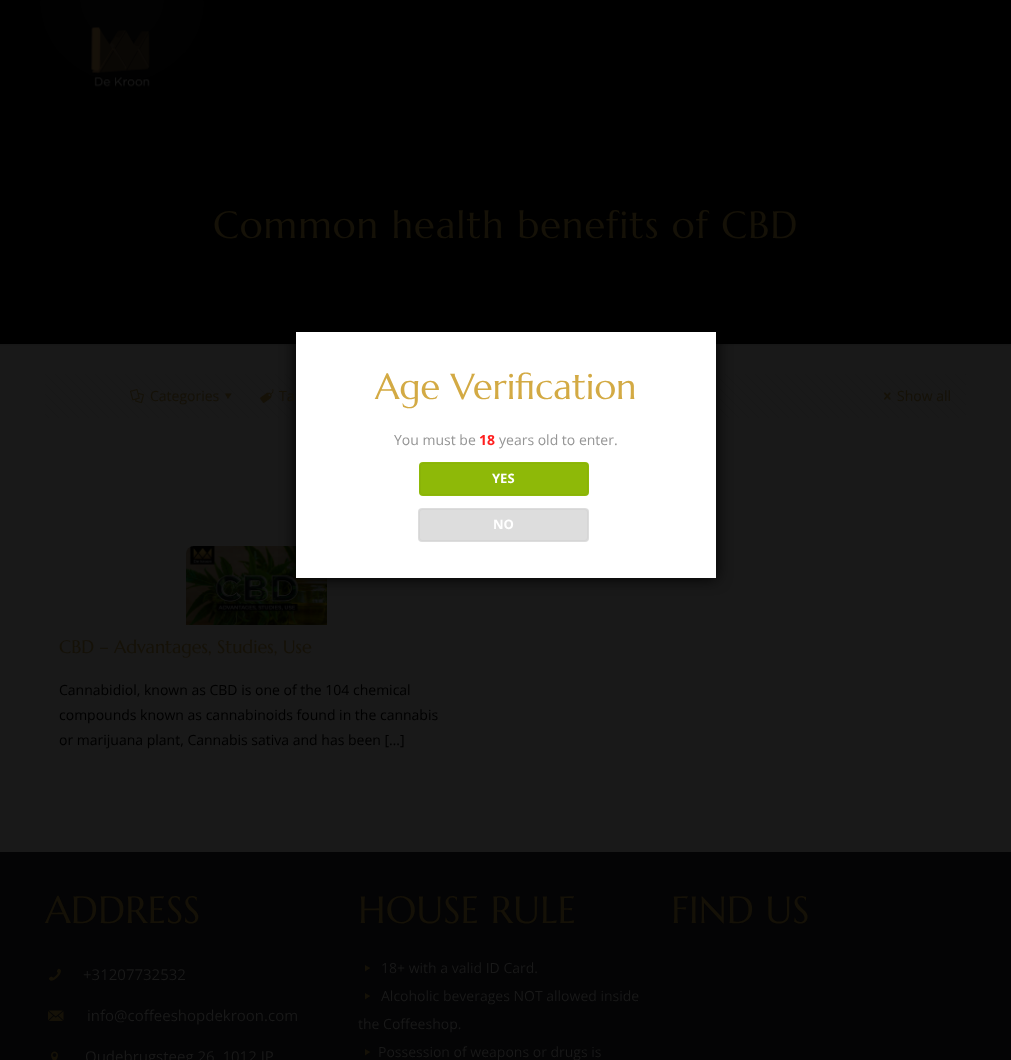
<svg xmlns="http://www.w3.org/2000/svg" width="1011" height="1060">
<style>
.a{font:38px Marcellus;letter-spacing:1px;fill:#151107}
.b{font:14px Open Sans;fill:#151107}
.c{font:18px Marcellus;fill:#151107}
.d{font:14px Open Sans;fill:#000}
.e{font:38px Marcellus;fill:#151107}
.f{font:15px Open Sans;fill:#191919}
.g{font:14px Open Sans;fill:#191919}
.h{font:36px Marcellus;fill:#d3aa44}
.i{font:14px Open Sans;fill:#959595}
.j{font:bold 14px Open Sans;fill:#ff1f1f}
.k{font:bold 13px Open Sans;fill:#fff}
</style>
<rect width="100%" height="100%" fill="#191919"/>
<path fill="#000" d="M0 0h1011v344H0z"/>
<image href="1.png" x="40" y="0" width="164" height="87"/>
<image href="2.png" x="0" y="344" width="1011" height="2"/>
<image href="3.png" x="45" y="374" width="921" height="44"/>
<image href="4.png" x="130" y="389" width="14" height="15"/>
<path fill="#151107" d="M231.5 393.5l-3.5 5.5l-3-5.5z"/>
<image href="5.png" x="260" y="389" width="14" height="14"/>
<image href="6.png" x="884" y="392" width="7" height="8"/>
<image href="7.png" x="186" y="546" width="141" height="79"/>
<path fill="#040405" d="M0 852h1011v208H0z"/>
<image href="8.png" x="49" y="968" width="12" height="13"/>
<image href="9.png" x="48" y="1010" width="16" height="11"/>
<image href="10.png" x="51" y="1051" width="7" height="9"/>
<path fill="#151107" d="M365 965l5.5 3l-5.5 3.5z"/>
<path fill="#151107" d="M365 993l5.5 3l-5.5 3.5z"/>
<path fill="#151107" d="M365 1049l5.5 3l-5.5 3.5z"/>
<path fill="#000" filter="blur(7.5px)" d="M296 332h420v246H296z"/>
<path fill="#fff" d="M296 332h420v246H296z"/>
<rect fill="#8eb908" x="419" y="462" width="170" height="34" rx="4"/>
<rect fill="none" stroke="#8ab308" x="420.5" y="463.5" width="167" height="31" rx="2.5"/>
<rect fill="#ddd" x="418" y="508" width="171" height="34" rx="4"/>
<rect fill="none" stroke="#d6d6d6" x="419.5" y="509.5" width="168" height="31" rx="2.5"/>
<text class="a" x="213" y="238">Common health benefits of CBD</text>
<text class="b" x="150" y="401">Categories</text>
<text class="b" x="279" y="401">Ta</text>
<text class="b" x="897" y="401">Show all</text>
<text class="c" x="59" y="653">CBD – Advantages, Studies, Use</text>
<text class="d" x="59" y="695">Cannabidiol, known as CBD is one of the 104 chemical</text>
<text class="d" x="59" y="720">compounds known as cannabinoids found in the cannabis</text>
<text class="d" x="59" y="745">or marijuana plant, Cannabis sativa and has been […]</text>
<text class="e" x="45" y="923">ADDRESS</text>
<text class="f" x="83" y="980">+31207732532</text>
<text class="f" x="87" y="1021">info@coffeeshopdekroon.com</text>
<text class="f" x="85" y="1062">Oudebrugsteeg 26, 1012 JP</text>
<text class="e" x="358" y="923">HOUSE RULE</text>
<text class="g" x="381" y="973">18+ with a valid ID Card.</text>
<text class="g" x="381" y="1001">Alcoholic beverages NOT allowed inside</text>
<text class="g" x="358" y="1029">the Coffeeshop.</text>
<text class="g" x="378" y="1057">Possession of weapons or drugs is</text>
<text class="e" x="671" y="923">FIND US</text>
<text class="h" x="375" y="399">Age Verification</text>
<text class="i" x="394" y="445">You must be</text>
<text class="j" x="479" y="445">18</text>
<text class="i" x="499" y="445">years old to enter.</text>
<text class="k" x="492" y="483">YES</text>
<text class="k" x="493" y="529">NO</text>
</svg>
